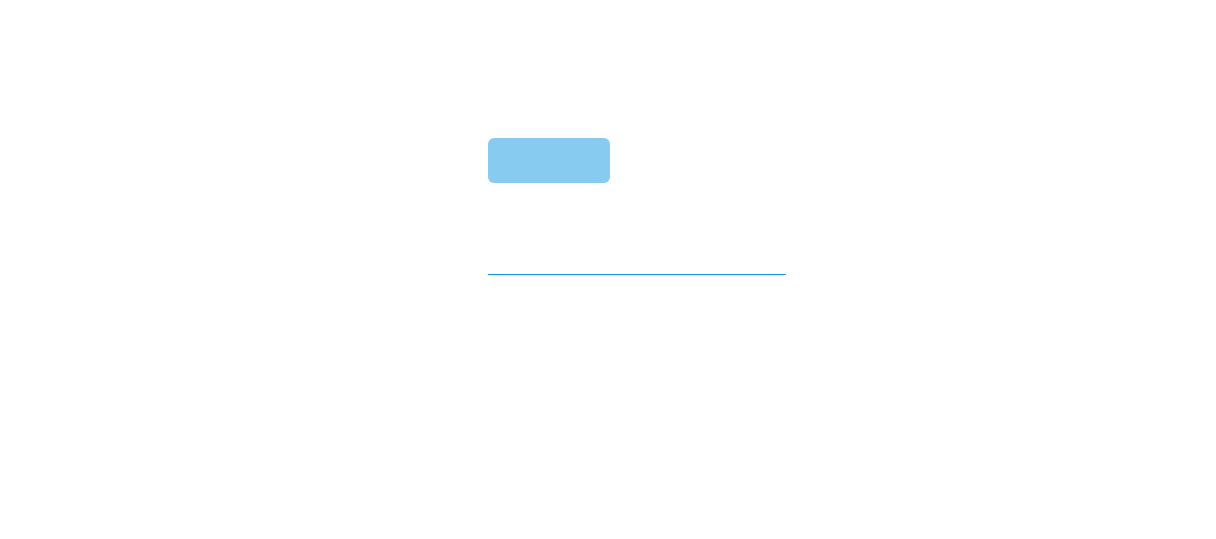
<svg xmlns="http://www.w3.org/2000/svg" width="1216" height="539">
<rect width="100%" height="100%" fill="#fff"/>
<rect fill="#88cbf1" x="488" y="138" width="122" height="45" rx="6"/>
<path fill="#1196e3" d="M488 274h298v1H488z"/>
</svg>
